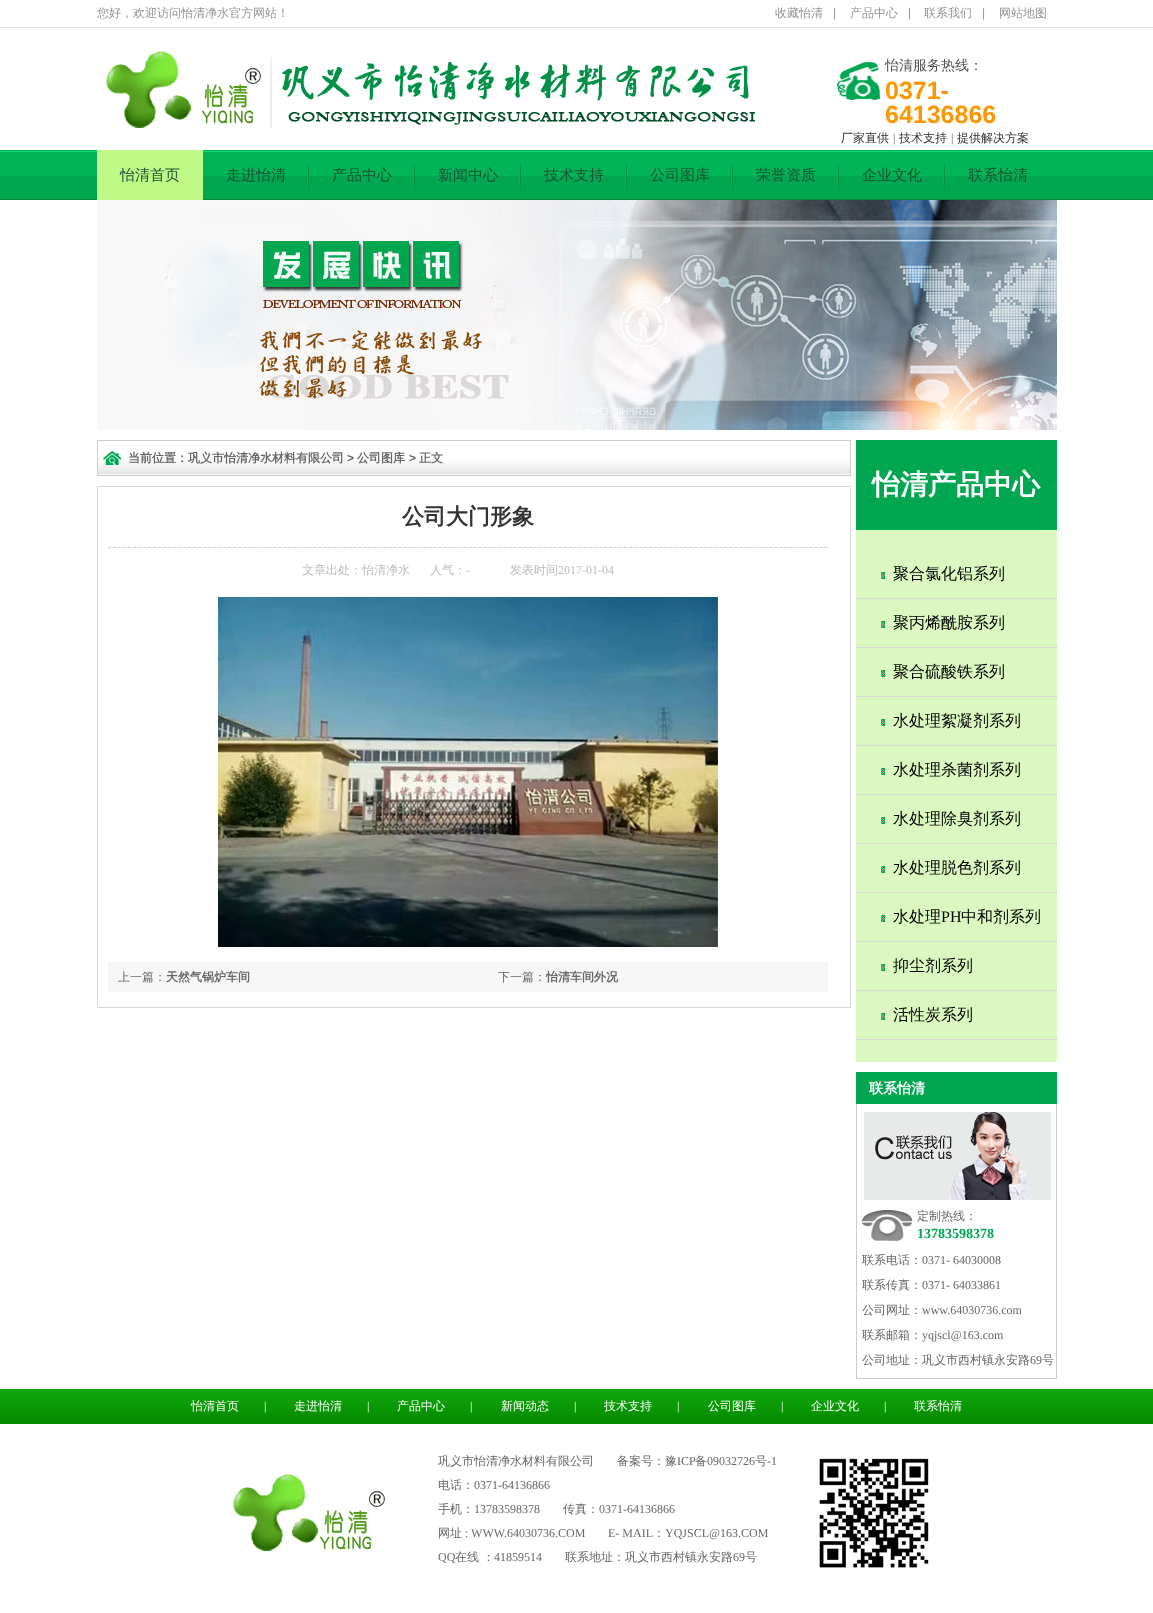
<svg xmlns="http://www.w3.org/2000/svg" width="1153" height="1613">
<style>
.a{font:500 12px WenQuanYi Zen Hei;fill:#939393}
.b{font:12px Liberation Sans;fill:#939393}
.c{font:500 14px WenQuanYi Zen Hei;fill:#525252}
.d{font:bold 25px Liberation Sans;fill:#ff9601}
.e{font:500 12px WenQuanYi Zen Hei;fill:#333}
.f{font:12px Liberation Serif;fill:#666}
.g{font:500 15px WenQuanYi Zen Hei;fill:#1a5335}
.h{font:bold 12px WenQuanYi Zen Hei;fill:#666}
.i{font:bold 12px Liberation Sans;fill:#666}
.j{font:bold 22px WenQuanYi Zen Hei;fill:#333}
.k{font:500 12px WenQuanYi Zen Hei;fill:#bcbbbb}
.l{font:12px Liberation Serif;fill:#bcbbbb}
.m{font:500 12px WenQuanYi Zen Hei;fill:#666}
.n{font:bold 28px WenQuanYi Zen Hei;fill:#fff}
.o{font:500 16px WenQuanYi Zen Hei;fill:#000}
.p{font:16px Liberation Serif;fill:#000}
.q{font:bold 14px WenQuanYi Zen Hei;fill:#fff}
.r{font:bold 14px Liberation Serif;fill:#00a650}
.s{font:500 12px WenQuanYi Zen Hei;fill:#fff}
.t{font:12px Liberation Serif;fill:#fff}
</style>
<defs>
<clipPath id="clip1"><path d="M862 1248h194v25H862z"/></clipPath>
<clipPath id="clip2"><path d="M862 1273h194v25H862z"/></clipPath>
<clipPath id="clip3"><path d="M862 1323h194v25H862z"/></clipPath>
</defs>
<rect width="100%" height="100%" fill="#fff"/>
<path fill="#e4e4e4" d="M0 27h1153v1H0z"/>
<image href="1.png" x="106" y="51" width="649" height="77"/>
<image href="2.png" x="837" y="62" width="43" height="38"/>
<image href="3.png" x="0" y="150" width="1153" height="50"/>
<path fill="#c0f986" d="M97 150h106v50H97z"/>
<image href="4.png" x="307" y="163" width="2" height="28"/>
<image href="4.png" x="413" y="163" width="2" height="28"/>
<image href="4.png" x="519" y="163" width="2" height="28"/>
<image href="4.png" x="625" y="163" width="2" height="28"/>
<image href="4.png" x="731" y="163" width="2" height="28"/>
<image href="4.png" x="837" y="163" width="2" height="28"/>
<image href="4.png" x="943" y="163" width="2" height="28"/>
<image href="5.png" x="97" y="200" width="960" height="230"/>
<image href="6.png" x="98" y="440" width="752" height="36"/>
<path fill="#ccc" d="M850 440h1v36H850z"/>
<path fill="#ccc" d="M97 440h1v36H97z"/>
<image href="7.png" x="103" y="451" width="18" height="14"/>
<path fill="none" stroke="#d7d7d7" d="M97.5 486.5h753v521H97.5z"/>
<path fill="none" stroke="#ccc" stroke-dasharray="3 2.01" d="M108 547.5h720"/>
<image href="8.png" x="218" y="597" width="500" height="350"/>
<path fill="#f7f7f7" d="M108 962h720v30H108z"/>
<path fill="#dcf8c1" d="M856 530h201v532H856z"/>
<path fill="#00a650" d="M856 440h201v90H856z"/>
<path fill="none" stroke="#ccc" stroke-dasharray="1 1" d="M856 598.5h201"/>
<image href="9.png" x="881" y="572" width="4" height="7"/>
<path fill="none" stroke="#ccc" stroke-dasharray="1 1" d="M856 647.5h201"/>
<image href="9.png" x="881" y="621" width="4" height="7"/>
<path fill="none" stroke="#ccc" stroke-dasharray="1 1" d="M856 696.5h201"/>
<image href="9.png" x="881" y="670" width="4" height="7"/>
<path fill="none" stroke="#ccc" stroke-dasharray="1 1" d="M856 745.5h201"/>
<image href="9.png" x="881" y="719" width="4" height="7"/>
<path fill="none" stroke="#ccc" stroke-dasharray="1 1" d="M856 794.5h201"/>
<image href="9.png" x="881" y="768" width="4" height="7"/>
<path fill="none" stroke="#ccc" stroke-dasharray="1 1" d="M856 843.5h201"/>
<image href="9.png" x="881" y="817" width="4" height="7"/>
<path fill="none" stroke="#ccc" stroke-dasharray="1 1" d="M856 892.5h201"/>
<image href="9.png" x="881" y="866" width="4" height="7"/>
<path fill="none" stroke="#ccc" stroke-dasharray="1 1" d="M856 941.5h201"/>
<image href="9.png" x="881" y="915" width="4" height="7"/>
<path fill="none" stroke="#ccc" stroke-dasharray="1 1" d="M856 990.5h201"/>
<image href="9.png" x="881" y="964" width="4" height="7"/>
<path fill="none" stroke="#ccc" stroke-dasharray="1 1" d="M856 1039.5h201"/>
<image href="9.png" x="881" y="1013" width="4" height="7"/>
<path fill="#00a650" d="M856 1072h201v32H856z"/>
<path fill="#ccc" d="M1056 1104h1v275H1056z"/>
<path fill="#ccc" d="M856 1378h201v1H856z"/>
<path fill="#ccc" d="M856 1104h1v275H856z"/>
<image href="10.png" x="864" y="1112" width="187" height="88"/>
<image href="11.png" x="862" y="1210" width="51" height="31"/>
<image href="12.png" x="0" y="1389" width="1153" height="35"/>
<image href="13.png" x="233" y="1474" width="152" height="77"/>
<image href="14.png" x="819" y="1458" width="110" height="110"/>
<text class="a" x="97" y="17">您好，欢迎访问怡清净水官方网站！</text>
<text class="a" x="775" y="17">收藏怡清</text>
<text class="b" x="833" y="17">|</text>
<text class="a" x="850" y="17">产品中心</text>
<text class="b" x="908" y="17">|</text>
<text class="a" x="924" y="17">联系我们</text>
<text class="b" x="982" y="17">|</text>
<text class="a" x="999" y="17">网站地图</text>
<text class="c" x="885" y="70">怡清服务热线：</text>
<text class="d" x="885" y="99">0371-</text>
<text class="d" x="885" y="123">64136866</text>
<text class="e" x="841" y="142">厂家直供</text>
<text class="f" x="893" y="142">|</text>
<text class="e" x="899" y="142">技术支持</text>
<text class="f" x="951" y="142">|</text>
<text class="e" x="957" y="142">提供解决方案</text>
<text class="g" x="120" y="180">怡清首页</text>
<text class="g" x="226" y="180">走进怡清</text>
<text class="g" x="332" y="180">产品中心</text>
<text class="g" x="438" y="180">新闻中心</text>
<text class="g" x="544" y="180">技术支持</text>
<text class="g" x="650" y="180">公司图库</text>
<text class="g" x="756" y="180">荣誉资质</text>
<text class="g" x="862" y="180">企业文化</text>
<text class="g" x="968" y="180">联系怡清</text>
<text class="h" x="128" y="462">当前位置：巩义市怡清净水材料有限公司</text>
<text class="i" x="347" y="462">&gt;</text>
<text class="h" x="357" y="462">公司图库</text>
<text class="i" x="409" y="462">&gt;</text>
<text class="h" x="419" y="462">正文</text>
<text class="j" x="402" y="524">公司大门形象</text>
<text class="k" x="302" y="574">文章出处：怡清净水</text>
<text class="k" x="430" y="574">人气：</text>
<text class="l" x="466" y="574">-</text>
<text class="k" x="510" y="574">发表时间</text>
<text class="l" x="558" y="574">2017-01-04</text>
<text class="m" x="118" y="981">上一篇：</text>
<text class="h" x="166" y="981">天然气锅炉车间</text>
<text class="m" x="498" y="981">下一篇：</text>
<text class="h" x="546" y="981">怡清车间外况</text>
<text class="n" x="872" y="494">怡清产品中心</text>
<text class="o" x="893" y="579">聚合氯化铝系列</text>
<text class="o" x="893" y="628">聚丙烯酰胺系列</text>
<text class="o" x="893" y="677">聚合硫酸铁系列</text>
<text class="o" x="893" y="726">水处理絮凝剂系列</text>
<text class="o" x="893" y="775">水处理杀菌剂系列</text>
<text class="o" x="893" y="824">水处理除臭剂系列</text>
<text class="o" x="893" y="873">水处理脱色剂系列</text>
<text class="o" x="893" y="922">水处理</text>
<text class="p" x="941" y="922">PH</text>
<text class="o" x="961" y="922">中和剂系列</text>
<text class="o" x="893" y="971">抑尘剂系列</text>
<text class="o" x="893" y="1020">活性炭系列</text>
<text class="q" x="869" y="1093">联系怡清</text>
<text class="m" x="917" y="1220">定制热线：</text>
<text class="r" x="917" y="1238">13783598378</text>
<g clip-path="url(#clip1)">
<text class="m" x="862" y="1264">联系电话：</text>
</g>
<text class="f" x="922" y="1264">0371- 64030008</text>
<g clip-path="url(#clip2)">
<text class="m" x="862" y="1289">联系传真：</text>
</g>
<text class="f" x="922" y="1289">0371- 64033861</text>
<text class="m" x="862" y="1314">公司网址：</text>
<text class="f" x="922" y="1314">www.64030736.com</text>
<g clip-path="url(#clip3)">
<text class="m" x="862" y="1339">联系邮箱：</text>
</g>
<text class="f" x="922" y="1339">yqjscl@163.com</text>
<text class="m" x="862" y="1364">公司地址：巩义市西村镇永安路</text>
<text class="f" x="1030" y="1364">69</text>
<text class="m" x="1042" y="1364">号</text>
<text class="s" x="191" y="1410">怡清首页</text>
<text class="t" x="264" y="1410">|</text>
<text class="s" x="294" y="1410">走进怡清</text>
<text class="t" x="367" y="1410">|</text>
<text class="s" x="397" y="1410">产品中心</text>
<text class="t" x="470" y="1410">|</text>
<text class="s" x="501" y="1410">新闻动态</text>
<text class="t" x="574" y="1410">|</text>
<text class="s" x="604" y="1410">技术支持</text>
<text class="t" x="677" y="1410">|</text>
<text class="s" x="708" y="1410">公司图库</text>
<text class="t" x="781" y="1410">|</text>
<text class="s" x="811" y="1410">企业文化</text>
<text class="t" x="884" y="1410">|</text>
<text class="s" x="914" y="1410">联系怡清</text>
<text class="m" x="438" y="1465">巩义市怡清净水材料有限公司</text>
<text class="m" x="617" y="1465">备案号：豫</text>
<text class="f" x="677" y="1465">ICP</text>
<text class="m" x="695" y="1465">备</text>
<text class="f" x="707" y="1465">09032726</text>
<text class="m" x="755" y="1465">号</text>
<text class="f" x="767" y="1465">-1</text>
<text class="m" x="438" y="1489">电话：</text>
<text class="f" x="474" y="1489">0371-64136866</text>
<text class="m" x="438" y="1513">手机：</text>
<text class="f" x="474" y="1513">13783598378</text>
<text class="m" x="563" y="1513">传真：</text>
<text class="f" x="599" y="1513">0371-64136866</text>
<text class="m" x="438" y="1537">网址</text>
<text class="f" x="465" y="1537">: WWW.64030736.COM</text>
<text class="f" x="608" y="1537">E- MAIL</text>
<text class="m" x="653" y="1537">：</text>
<text class="f" x="665" y="1537">YQJSCL@163.COM</text>
<text class="f" x="438" y="1561">QQ</text>
<text class="m" x="455" y="1561">在线 ：</text>
<text class="f" x="494" y="1561">41859514</text>
<text class="m" x="565" y="1561">联系地址：巩义市西村镇永安路</text>
<text class="f" x="733" y="1561">69</text>
<text class="m" x="745" y="1561">号</text>
</svg>
